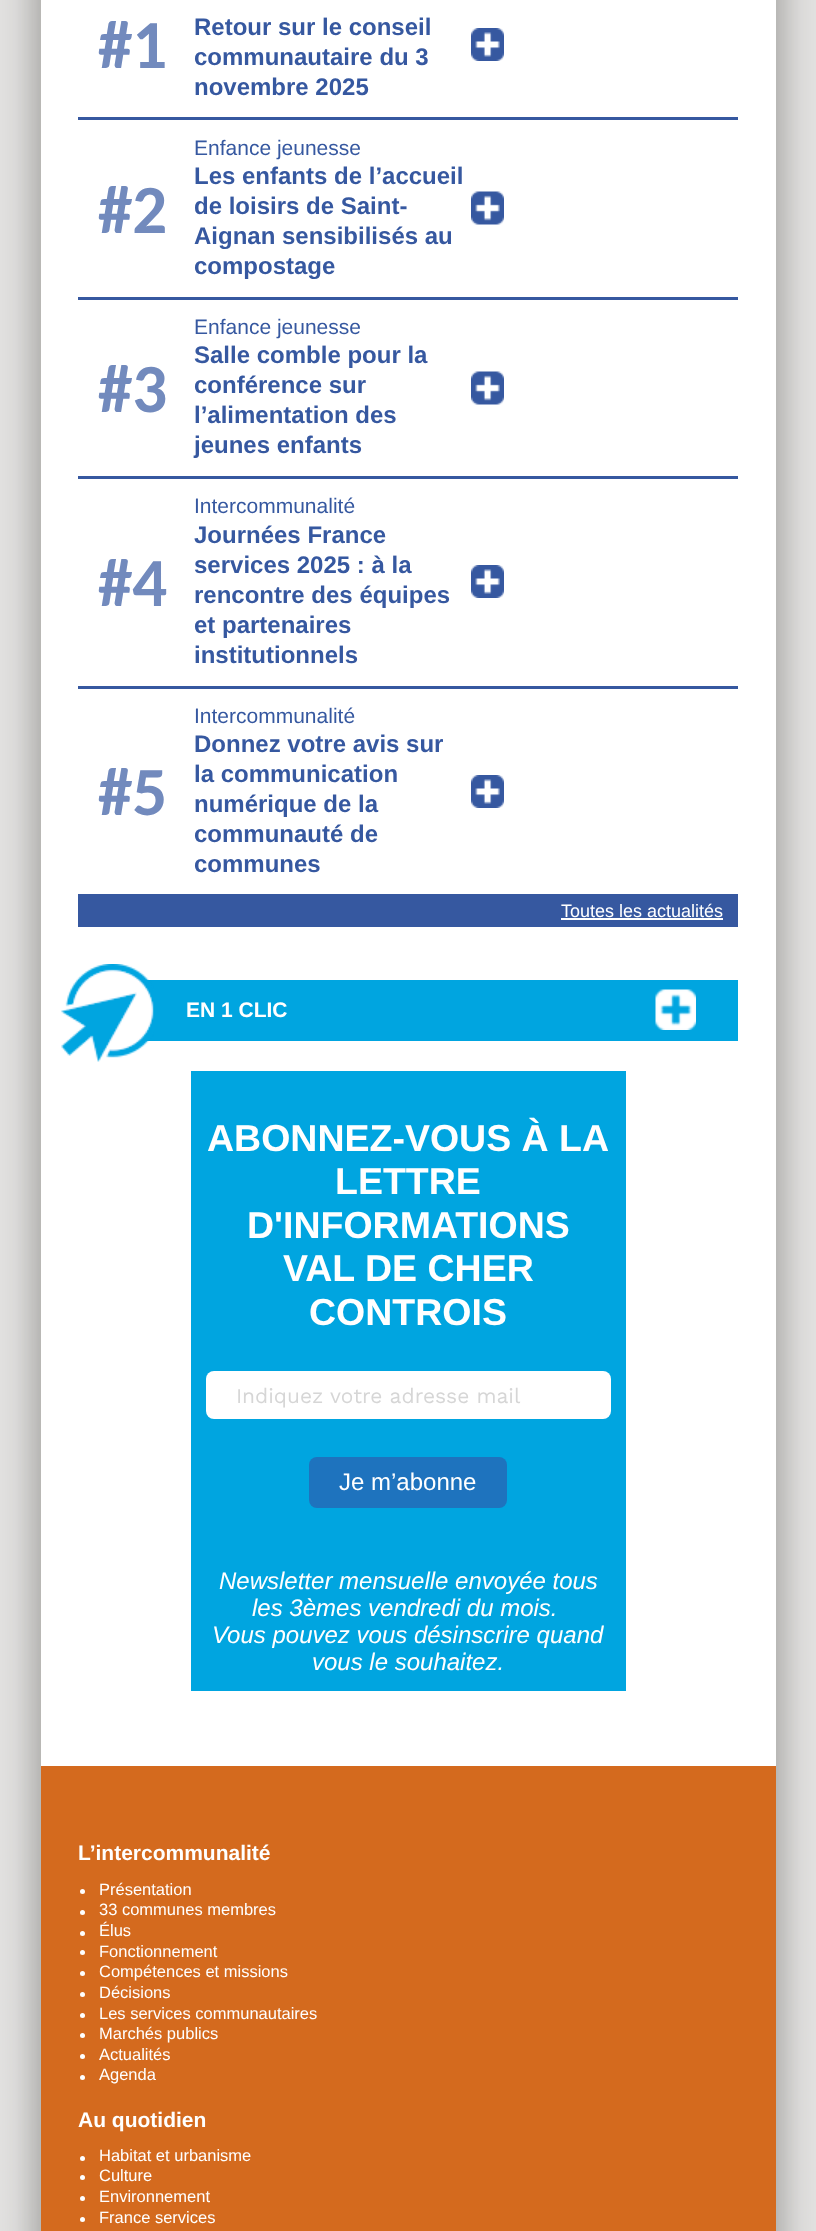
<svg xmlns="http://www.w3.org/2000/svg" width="816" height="2231">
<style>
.a{font:bold 69px Carlito;fill:#728abd}
.b{font:bold 24px Liberation Sans;fill:#3658a0}
.c{font:21px Liberation Sans;fill:#3658a0}
.d{font:18px Liberation Sans;fill:#fff}
.e{font:bold 21px Liberation Sans;fill:#fff}
.f{font:bold 37.5px Liberation Sans;fill:#fff}
.g{font:21px Work Sans;fill:#d6d6d6}
.h{font:24px Liberation Sans;fill:#fff}
.i{font:italic 24px Liberation Sans;fill:#fff}
.j{font:16.5px Liberation Sans;fill:#fff}
</style>
<rect width="100%" height="100%" fill="#e2e1e0"/>
<path fill="#17170f4d" filter="blur(16px)" d="M33 -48h750v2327H33z"/>
<path fill="#fff" d="M41 0h735v1766H41z"/>
<path fill="#3658a0" d="M78 117h660v3H78z"/>
<image href="1.png" x="471" y="28" width="33" height="33"/>
<path fill="#3658a0" d="M78 297h660v3H78z"/>
<image href="2.png" x="471" y="191" width="33" height="34"/>
<path fill="#3658a0" d="M78 476h660v3H78z"/>
<image href="2.png" x="471" y="371" width="33" height="34"/>
<path fill="#3658a0" d="M78 686h660v3H78z"/>
<image href="1.png" x="471" y="565" width="33" height="33"/>
<path fill="#3658a0" d="M78 894h660v33H78z"/>
<image href="1.png" x="471" y="775" width="33" height="33"/>
<path fill="#fff" d="M561 918h162v2H561z"/>
<path fill="#00a5e0" d="M78 980h660v61H78z"/>
<image href="3.png" x="61" y="964" width="93" height="98"/>
<image href="4.png" x="655" y="989" width="41" height="41"/>
<path fill="#00a5e0" d="M191 1071h435v620H191z"/>
<rect fill="#fff" x="206" y="1371" width="405" height="48" rx="8"/>
<rect fill="#1e73be" x="309" y="1457" width="198" height="51" rx="8"/>
<path fill="#d46a1e" d="M41 1766h735v465H41z"/>
<circle fill="#fff" cx="82.5" cy="1891.5" r="2.5"/>
<circle fill="#fff" cx="82.5" cy="1912.5" r="2.5"/>
<circle fill="#fff" cx="82.5" cy="1933.5" r="2.5"/>
<circle fill="#fff" cx="82.5" cy="1952.5" r="2.5"/>
<circle fill="#fff" cx="82.5" cy="1973.5" r="2.5"/>
<circle fill="#fff" cx="82.5" cy="1994.5" r="2.5"/>
<circle fill="#fff" cx="82.5" cy="2015.5" r="2.5"/>
<circle fill="#fff" cx="82.5" cy="2035.5" r="2.5"/>
<circle fill="#fff" cx="82.5" cy="2056.5" r="2.5"/>
<circle fill="#fff" cx="82.5" cy="2077.5" r="2.5"/>
<circle fill="#fff" cx="82.5" cy="2158.5" r="2.5"/>
<circle fill="#fff" cx="82.5" cy="2177.5" r="2.5"/>
<circle fill="#fff" cx="82.5" cy="2198.5" r="2.5"/>
<circle fill="#fff" cx="82.5" cy="2219.5" r="2.5"/>
<text class="a" x="98" y="68">#1</text>
<text class="b" x="194" y="35">Retour sur le conseil</text>
<text class="b" x="194" y="65">communautaire du 3</text>
<text class="b" x="194" y="95">novembre 2025</text>
<text class="a" x="98" y="233">#2</text>
<text class="c" x="194" y="155">Enfance jeunesse</text>
<text class="b" x="194" y="184">Les enfants de l’accueil</text>
<text class="b" x="194" y="214">de loisirs de Saint-</text>
<text class="b" x="194" y="244">Aignan sensibilisés au</text>
<text class="b" x="194" y="274">compostage</text>
<text class="a" x="98" y="412">#3</text>
<text class="c" x="194" y="334">Enfance jeunesse</text>
<text class="b" x="194" y="363">Salle comble pour la</text>
<text class="b" x="194" y="393">conférence sur</text>
<text class="b" x="194" y="423">l’alimentation des</text>
<text class="b" x="194" y="453">jeunes enfants</text>
<text class="a" x="98" y="606">#4</text>
<text class="c" x="194" y="513">Intercommunalité</text>
<text class="b" x="194" y="543">Journées France</text>
<text class="b" x="194" y="573">services 2025 : à la</text>
<text class="b" x="194" y="603">rencontre des équipes</text>
<text class="b" x="194" y="633">et partenaires</text>
<text class="b" x="194" y="663">institutionnels</text>
<text class="a" x="98" y="815">#5</text>
<text class="c" x="194" y="723">Intercommunalité</text>
<text class="b" x="194" y="752">Donnez votre avis sur</text>
<text class="b" x="194" y="782">la communication</text>
<text class="b" x="194" y="812">numérique de la</text>
<text class="b" x="194" y="842">communauté de</text>
<text class="b" x="194" y="872">communes</text>
<text class="d" x="561" y="917">Toutes les actualités</text>
<text class="e" x="186" y="1017">EN 1 CLIC</text>
<text class="f" x="207" y="1151">ABONNEZ-VOUS À LA</text>
<text class="f" x="335" y="1194">LETTRE</text>
<text class="f" x="247" y="1238">D'INFORMATIONS</text>
<text class="f" x="283" y="1281">VAL DE CHER</text>
<text class="f" x="309" y="1325">CONTROIS</text>
<text class="g" x="236" y="1403">Indiquez votre adresse mail</text>
<text class="h" x="339" y="1490">Je m’abonne</text>
<text class="i" x="219" y="1589">Newsletter mensuelle envoyée tous</text>
<text class="i" x="252" y="1616">les 3èmes vendredi du mois.</text>
<text class="i" x="212" y="1643">Vous pouvez vous désinscrire quand</text>
<text class="i" x="312" y="1670">vous le souhaitez.</text>
<text class="e" x="78" y="1860">L’intercommunalité</text>
<text class="j" x="99" y="1895">Présentation</text>
<text class="j" x="99" y="1915">33 communes membres</text>
<text class="j" x="99" y="1936">Élus</text>
<text class="j" x="99" y="1957">Fonctionnement</text>
<text class="j" x="99" y="1977">Compétences et missions</text>
<text class="j" x="99" y="1998">Décisions</text>
<text class="j" x="99" y="2019">Les services communautaires</text>
<text class="j" x="99" y="2039">Marchés publics</text>
<text class="j" x="99" y="2060">Actualités</text>
<text class="j" x="99" y="2080">Agenda</text>
<text class="e" x="78" y="2127">Au quotidien</text>
<text class="j" x="99" y="2161">Habitat et urbanisme</text>
<text class="j" x="99" y="2181">Culture</text>
<text class="j" x="99" y="2202">Environnement</text>
<text class="j" x="99" y="2223">France services</text>
</svg>
